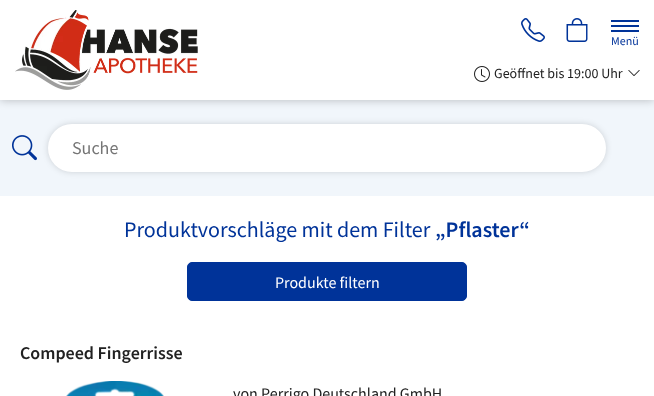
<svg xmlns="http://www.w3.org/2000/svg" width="654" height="396">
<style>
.a{font:12px Source Sans Pro;fill:#039}
.b{font:14px Source Sans Pro;fill:#212121}
.c{font:18px Source Sans Pro;fill:#757575}
.d{font:22px Source Sans Pro;fill:#039}
.e{font:600 22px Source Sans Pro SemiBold;fill:#039}
.f{font:16px Source Sans Pro;fill:#fff}
.g{font:600 18px Source Sans Pro SemiBold;fill:#212121}
.h{font:16px Source Sans Pro;fill:#212121}
</style>
<rect width="100%" height="100%" fill="#fff"/>
<path fill="#f1f6fb" d="M0 100h654v96H0z"/>
<path fill="#00000040" filter="blur(5px)" d="M0 0h654v100H0z"/>
<path fill="#fff" d="M0 0h654v100H0z"/>
<image href="1.png" x="15" y="10" width="183" height="80"/>
<image href="2.png" x="521" y="18" width="24" height="24"/>
<image href="3.png" x="566" y="18" width="22" height="24"/>
<path fill="#039" d="M611 25h28v2H611z"/>
<path fill="#039" d="M611 20h28v2H611z"/>
<path fill="#039" d="M611 30h28v2H611z"/>
<image href="4.png" x="474" y="66" width="16" height="16"/>
<image href="5.png" x="628" y="70" width="12" height="6"/>
<image href="6.png" x="12" y="135" width="25" height="26"/>
<rect fill="#00000026" filter="blur(3px)" x="48" y="124" width="558" height="48" rx="24"/>
<rect fill="#fff" x="48" y="124" width="558" height="48" rx="24"/>
<rect fill="#039" stroke="#039" x="187.5" y="262.5" width="279" height="38" rx="4.5"/>
<image href="7.png" x="66" y="381" width="98" height="15"/>
<text class="a" x="611" y="45">Menü</text>
<text class="b" x="494" y="78">Geöffnet bis 19:00 Uhr</text>
<text class="c" x="72" y="154">Suche</text>
<text class="d" x="124" y="237">Produktvorschläge mit dem Filter</text>
<text class="e" x="435" y="237">„Pflaster“</text>
<text class="f" x="275" y="288">Produkte filtern</text>
<text class="g" x="20" y="359">Compeed Fingerrisse</text>
<text class="h" x="233" y="399">von Perrigo Deutschland GmbH</text>
</svg>
